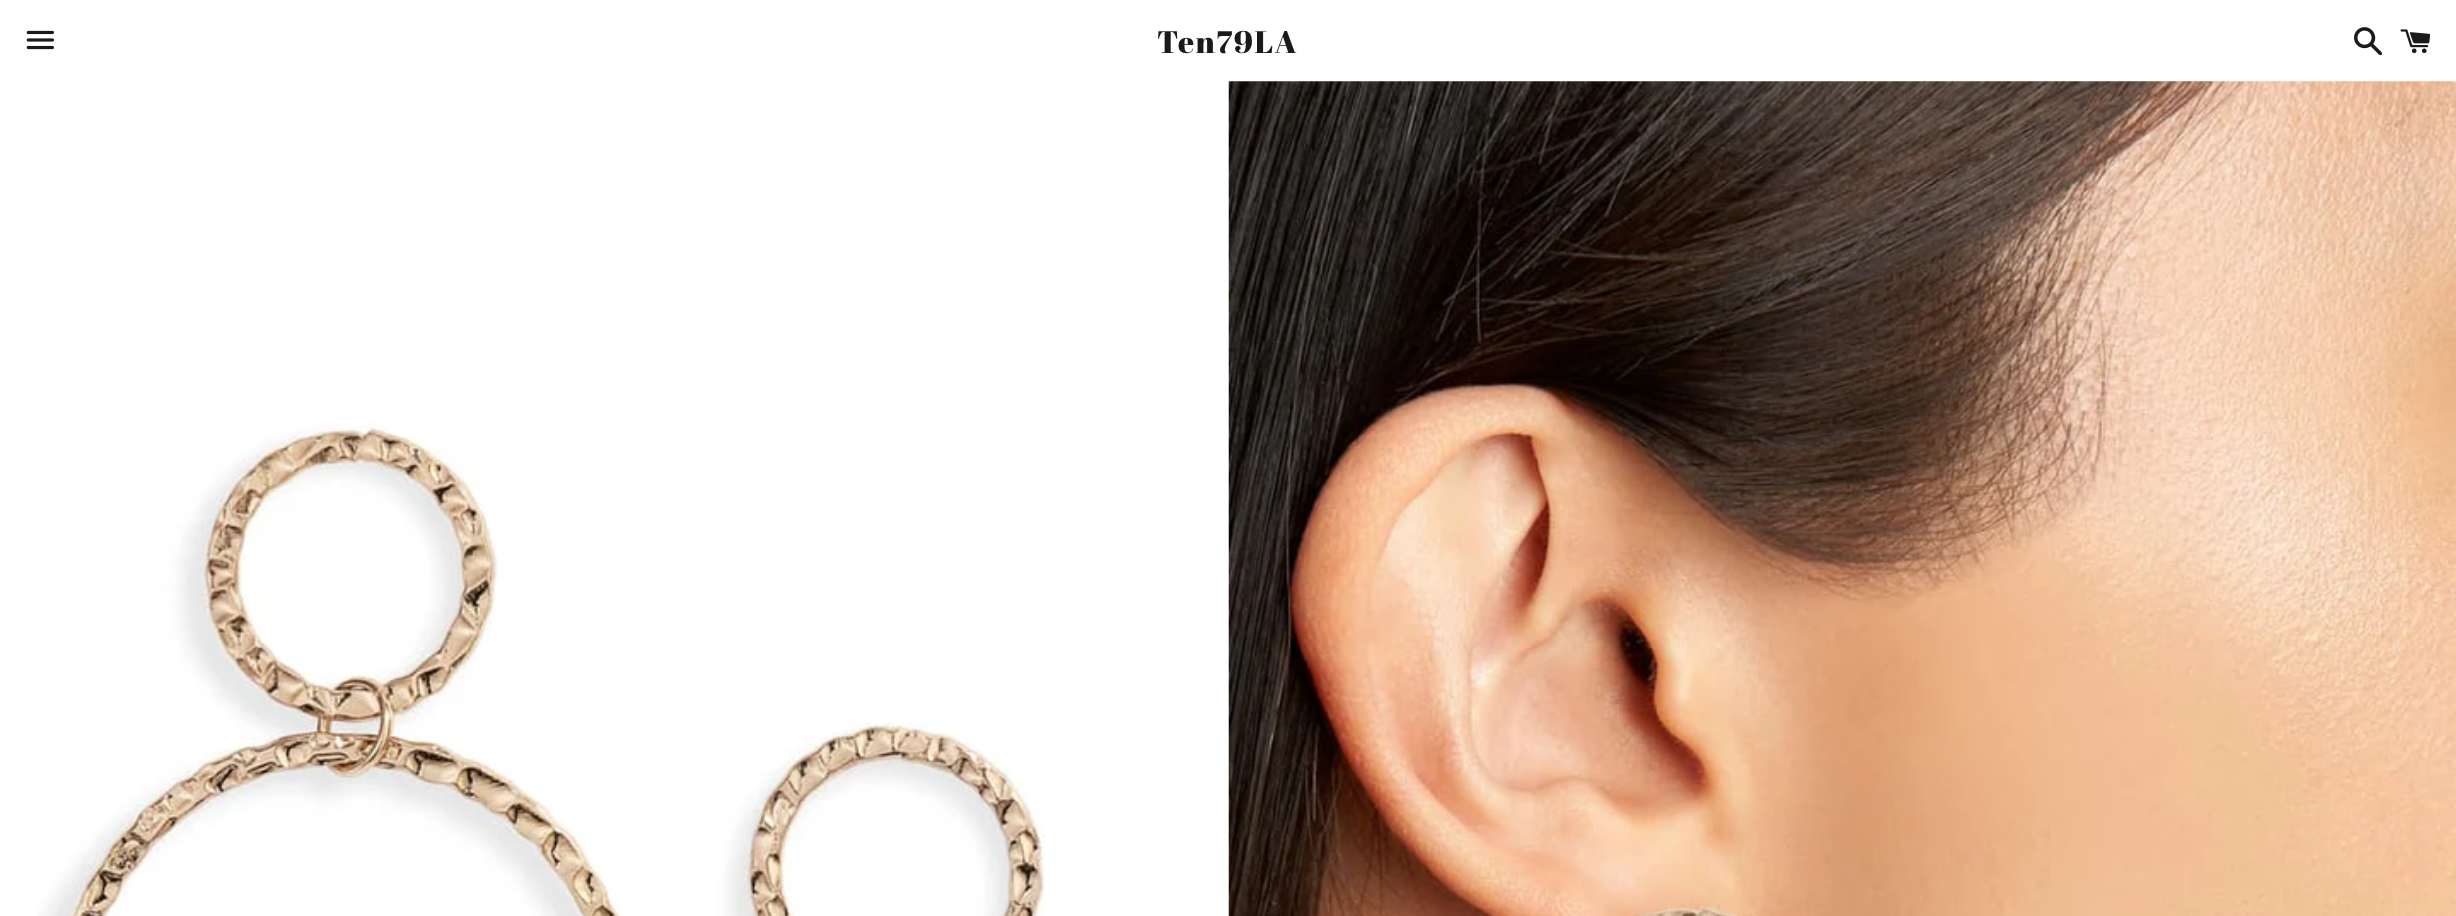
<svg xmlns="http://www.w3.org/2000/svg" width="2456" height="916">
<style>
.a{font:31.25px Abril Fatface;letter-spacing:1.5px;fill:#1a1a1a}
</style>
<rect width="100%" height="100%" fill="#fff"/>
<image href="1.png" x="26" y="30" width="28" height="20"/>
<image href="2.png" x="2354" y="27" width="29" height="29"/>
<image href="3.png" x="2400" y="29" width="31" height="25"/>
<image href="4.png" x="37" y="422" width="1008" height="494"/>
<image href="5.png" x="1228" y="81" width="1228" height="835"/>
<text class="a" x="1157" y="53">Ten79LA</text>
</svg>
